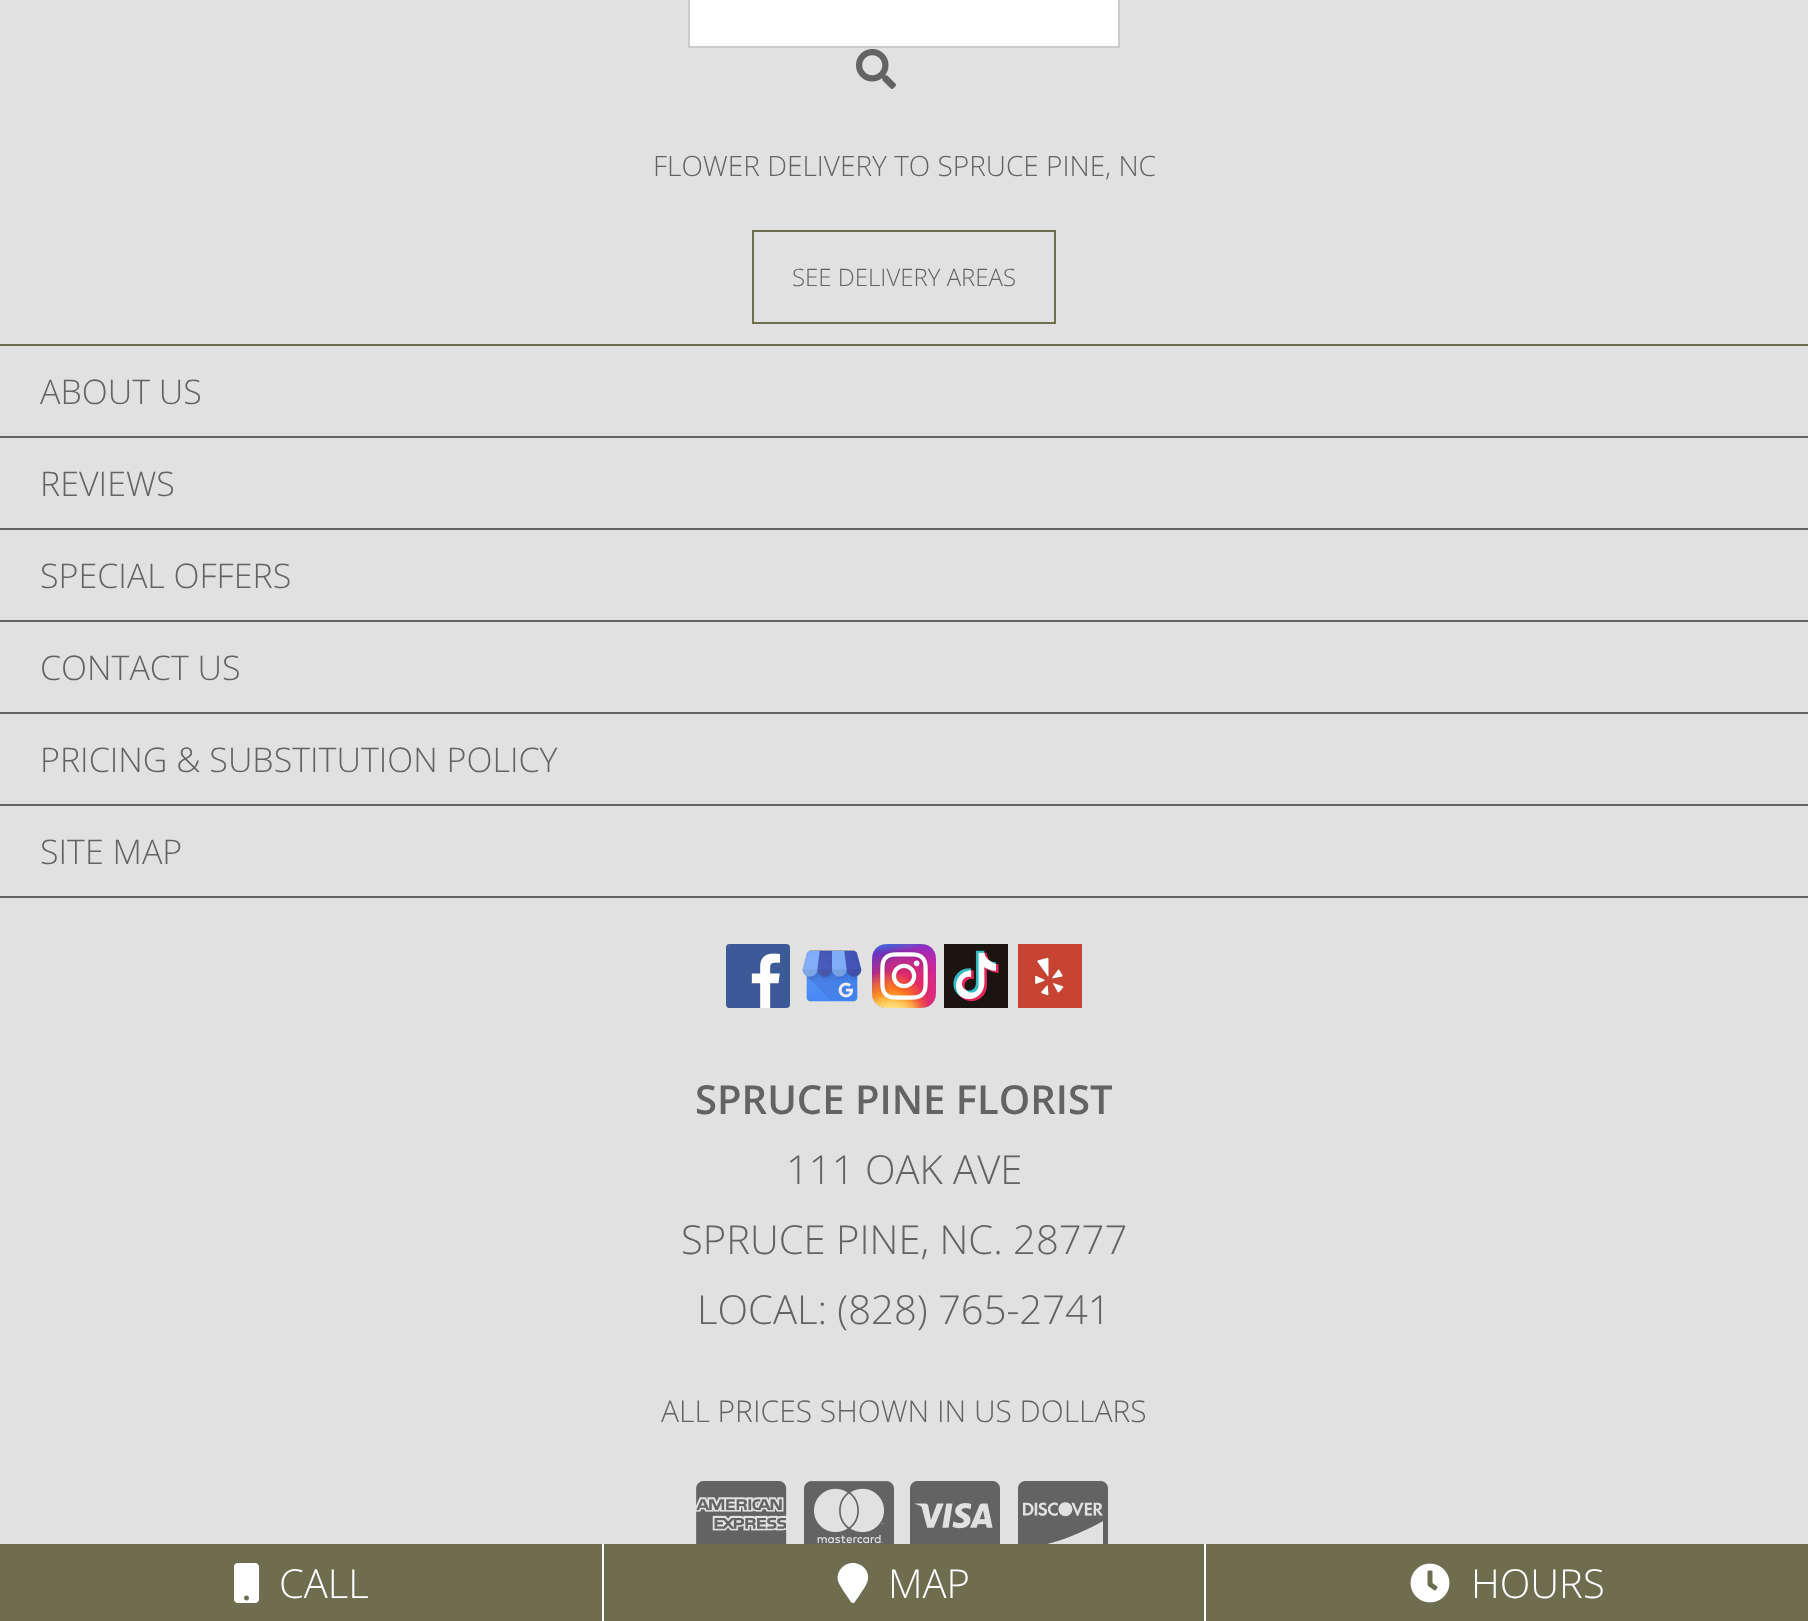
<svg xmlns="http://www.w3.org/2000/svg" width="1808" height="1621">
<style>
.a{font:300 28px Open Sans;fill:#636363}
.b{font:300 24px Open Sans;fill:#636363}
.c{font:300 34px Open Sans;fill:#636363}
.d{font:600 40px Open Sans;fill:#636363}
.e{font:300 40px Open Sans;fill:#636363}
.f{font:300 30px Open Sans;fill:#636363}
.g{font:300 40px Open Sans;fill:#fff}
</style>
<rect width="100%" height="100%" fill="#e1e1e1"/>
<path fill="#6e6d4f" d="M0 344h1808v2H0z"/>
<path fill="#fff" stroke="#ccc" stroke-width="2" d="M689 -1h430v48H689z"/>
<image href="1.png" x="856" y="49" width="40" height="40"/>
<path fill="none" stroke="#6e6d4f" stroke-width="2" d="M753 231h302v92H753z"/>
<path fill="#636363" d="M0 436h1808v2H0z"/>
<path fill="#636363" d="M0 528h1808v2H0z"/>
<path fill="#636363" d="M0 620h1808v2H0z"/>
<path fill="#636363" d="M0 712h1808v2H0z"/>
<path fill="#636363" d="M0 804h1808v2H0z"/>
<path fill="#636363" d="M0 896h1808v2H0z"/>
<image href="2.png" x="726" y="944" width="64" height="64"/>
<image href="3.png" x="802" y="950" width="60" height="52"/>
<image href="4.png" x="872" y="944" width="64" height="64"/>
<image href="5.png" x="944" y="944" width="64" height="64"/>
<image href="6.png" x="1018" y="944" width="64" height="64"/>
<image href="7.png" x="696" y="1481" width="91" height="63"/>
<image href="8.png" x="804" y="1481" width="90" height="63"/>
<image href="9.png" x="910" y="1481" width="90" height="63"/>
<image href="10.png" x="1018" y="1481" width="90" height="63"/>
<path fill="#6e6d4f" d="M0 1544h602v77H0z"/>
<image href="11.png" x="234" y="1563" width="25" height="40"/>
<path fill="#6e6d4f" d="M604 1544h600v77H604z"/>
<path fill="#fff" d="M602 1544h2v77H602z"/>
<path fill="#fff" d="M851 1602c-3-5-11-15-13-21c-3-16 18-25 28-11c6 10-2 18-7 26l-5 7c-1 0-2 0-3-1z"/>
<path fill="#6e6d4f" d="M1206 1544h602v77H1206z"/>
<path fill="#fff" d="M1204 1544h2v77H1204z"/>
<image href="12.png" x="1410" y="1563" width="40" height="40"/>
<text class="a" x="653" y="176">FLOWER DELIVERY TO SPRUCE PINE, NC</text>
<text class="b" x="792" y="286">SEE DELIVERY AREAS</text>
<text class="c" x="40" y="404">ABOUT US</text>
<text class="c" x="40" y="496">REVIEWS</text>
<text class="c" x="40" y="588">SPECIAL OFFERS</text>
<text class="c" x="40" y="680">CONTACT US</text>
<text class="c" x="40" y="772">PRICING &amp; SUBSTITUTION POLICY</text>
<text class="c" x="40" y="864">SITE MAP</text>
<text class="d" x="695" y="1114">SPRUCE PINE FLORIST</text>
<text class="e" x="786" y="1184">111 OAK AVE</text>
<text class="e" x="681" y="1254">SPRUCE PINE, NC. 28777</text>
<text class="e" x="697" y="1324">LOCAL: (828) 765-2741</text>
<text class="f" x="661" y="1422">ALL PRICES SHOWN IN US DOLLARS</text>
<text class="g" x="279" y="1598">CALL</text>
<text class="g" x="888" y="1598">MAP</text>
<text class="g" x="1471" y="1598">HOURS</text>
</svg>
